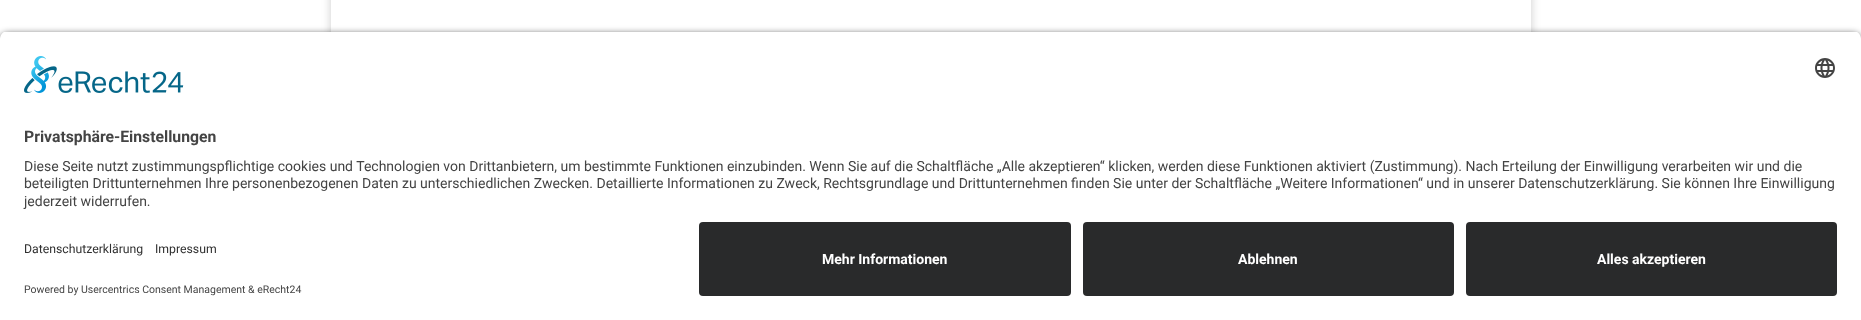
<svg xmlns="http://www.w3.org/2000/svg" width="1861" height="320">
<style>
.a{font:bold 15.75px Roboto;fill:#444}
.b{font:14px Roboto;fill:#444}
.c{font:12.25px Roboto;fill:#303030}
.d{font:10.5px Roboto;fill:#444}
.e{font:bold 14px Roboto;fill:#fff}
</style>
<defs>
<clipPath id="clip1"><path d="M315 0h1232v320h-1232zm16-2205h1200v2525h-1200z" clip-rule="evenodd"/></clipPath>
<clipPath id="clip2"><path d="M8 31h1845c4.5 0 8 3.5 8 8v175h-1861v-175c0-4.5 3.5-8 8-8z"/></clipPath>
</defs>
<rect width="100%" height="100%" fill="#fff"/>
<g clip-path="url(#clip1)">
<path fill="#00000033" filter="blur(5px)" d="M331 -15h1200v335H331z"/>
</g>
<rect fill="#000000cc" filter="blur(3.5px)" y="34" width="1861" height="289" rx="8"/>
<g clip-path="url(#clip2)">
<path fill="#fff" d="M0 32h1861v182H0z"/>
</g>
<image href="1.png" x="24" y="56" width="160" height="37"/>
<image href="2.png" x="1815" y="58" width="20" height="20"/>
<path fill="#fff" d="M0 214h1861v106H0z"/>
<rect fill="#292a2b" x="699" y="222" width="372" height="74" rx="4"/>
<rect fill="#292a2b" x="1083" y="222" width="371" height="74" rx="4"/>
<rect fill="#292a2b" x="1466" y="222" width="371" height="74" rx="4"/>
<text class="a" x="24" y="142">Privatsphäre-Einstellungen</text>
<text class="b" x="24" y="171">Diese Seite nutzt zustimmungspflichtige cookies und Technologien von Drittanbietern, um bestimmte Funktionen einzubinden. Wenn Sie auf die Schaltfläche „Alle akzeptieren“ klicken, werden diese Funktionen aktiviert (Zustimmung). Nach Erteilung der Einwilligung verarbeiten wir und die</text>
<text class="b" x="24" y="188">beteiligten Drittunternehmen Ihre personenbezogenen Daten zu unterschiedlichen Zwecken. Detaillierte Informationen zu Zweck, Rechtsgrundlage und Drittunternehmen finden Sie unter der Schaltfläche „Weitere Informationen“ und in unserer Datenschutzerklärung. Sie können Ihre Einwilligung</text>
<text class="b" x="24" y="206">jederzeit widerrufen.</text>
<text class="c" x="24" y="253">Datenschutzerklärung</text>
<text class="c" x="155" y="253">Impressum</text>
<text class="d" x="24" y="293">Powered by Usercentrics Consent Management &amp; eRecht24</text>
<text class="e" x="822" y="264">Mehr Informationen</text>
<text class="e" x="1238" y="264">Ablehnen</text>
<text class="e" x="1597" y="264">Alles akzeptieren</text>
</svg>
